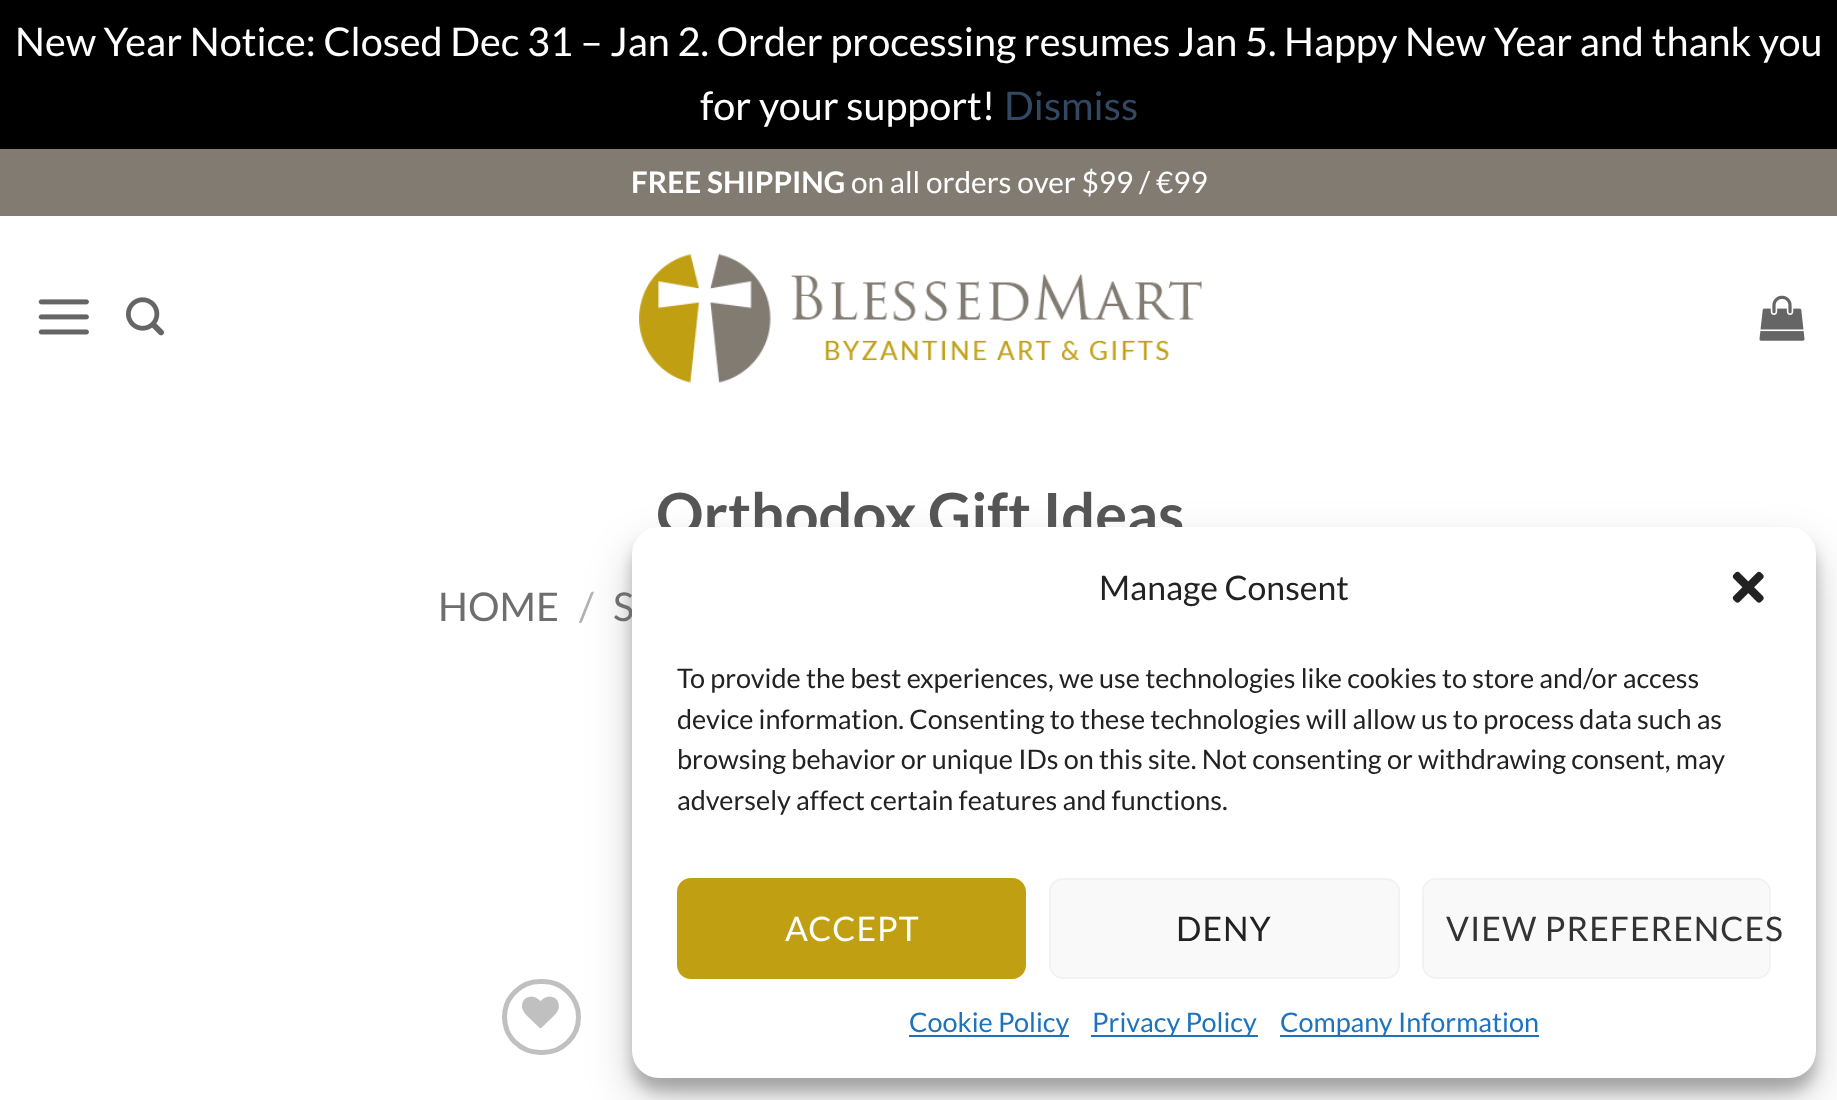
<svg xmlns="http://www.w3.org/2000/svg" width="1837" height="1100">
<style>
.a{font:39.6px Lato;fill:#fff}
.b{font:39.6px Lato;fill:#334862}
.c{font:bold 29.75px Lato;fill:#fff}
.d{font:29.75px Lato;fill:#fff}
.e{font:bold 59.5px Lato;fill:#555}
.f{font:39.6px Lato;fill:#6e6e6e}
.g{font:39.6px Lato;fill:#b2b2b2}
.h{font:33.75px Lato;fill:#222}
.i{font:27px Lato;fill:#222}
.j{font:33.75px Lato;letter-spacing:1px;fill:#fff}
.k{font:33.75px Lato;letter-spacing:1px;fill:#222}
.l{font:33.75px Lato;letter-spacing:1px;fill:#333}
.m{font:27px Lato;fill:#1e73be}
</style>
<rect width="100%" height="100%" fill="#000"/>
<path fill="#fff" d="M0 216h1837v884H0z"/>
<path fill="#827b72" d="M0 149h1837v67H0z"/>
<image href="1.png" x="38" y="299" width="51" height="36"/>
<image href="2.png" x="126" y="297" width="38" height="39"/>
<image href="3.png" x="639" y="254" width="563" height="129"/>
<image href="4.png" x="1759" y="295" width="46" height="46"/>
<rect fill="none" stroke="#c0c0c0" stroke-width="5" x="504.5" y="981.5" width="74" height="71" rx="35.5"/>
<image href="5.png" x="522" y="996" width="37" height="33"/>
<rect fill="#0000003b" filter="blur(7px)" x="632" y="540" width="1184" height="551" rx="27"/>
<rect fill="#00000030" filter="blur(22.5px)" x="632" y="549" width="1184" height="551" rx="27"/>
<text class="a" x="15" y="56">New Year Notice: Closed Dec 31 – Jan 2. Order processing resumes Jan 5. Happy New Year and thank you</text>
<text class="a" x="700" y="120">for your support!</text>
<text class="b" x="1004" y="120">Dismiss</text>
<text class="c" x="631" y="193">FREE SHIPPING</text>
<text class="d" x="851" y="193">on all orders over $99 / €99</text>
<text class="e" x="656" y="536">Orthodox Gift Ideas</text>
<text class="f" x="438" y="621">HOME</text>
<text class="g" x="579" y="621">/</text>
<text class="f" x="613" y="621">S</text>
<rect fill="#fff" x="632" y="527" width="1184" height="551" rx="27"/>
<text class="h" x="1099" y="600">Manage Consent</text>
<image href="6.png" x="1732" y="571" width="32" height="32"/>
<text class="i" x="677" y="688">To provide the best experiences, we use technologies like cookies to store and/or access</text>
<text class="i" x="677" y="729">device information. Consenting to these technologies will allow us to process data such as</text>
<text class="i" x="677" y="769">browsing behavior or unique IDs on this site. Not consenting or withdrawing consent, may</text>
<text class="i" x="677" y="810">adversely affect certain features and functions.</text>
<rect fill="#c19f12" stroke="#c19f12" stroke-width="2" x="678" y="879" width="347" height="99" rx="13"/>
<text class="j" x="785" y="941">ACCEPT</text>
<rect fill="#f9f9f9" stroke="#f2f2f2" stroke-width="2" x="1050" y="879" width="349" height="99" rx="13"/>
<text class="k" x="1176" y="941">DENY</text>
<rect fill="#f9f9f9" stroke="#f2f2f2" stroke-width="2" x="1423" y="879" width="347" height="99" rx="13"/>
<text class="l" x="1446" y="941">VIEW PREFERENCES</text>
<path fill="#1e73be" d="M909 1035h160v2H909z"/>
<text class="m" x="909" y="1032">Cookie Policy</text>
<path fill="#1e73be" d="M1091 1035h167v2H1091z"/>
<text class="m" x="1092" y="1032">Privacy Policy</text>
<path fill="#1e73be" d="M1280 1035h259v2H1280z"/>
<text class="m" x="1280" y="1032">Company Information</text>
</svg>
